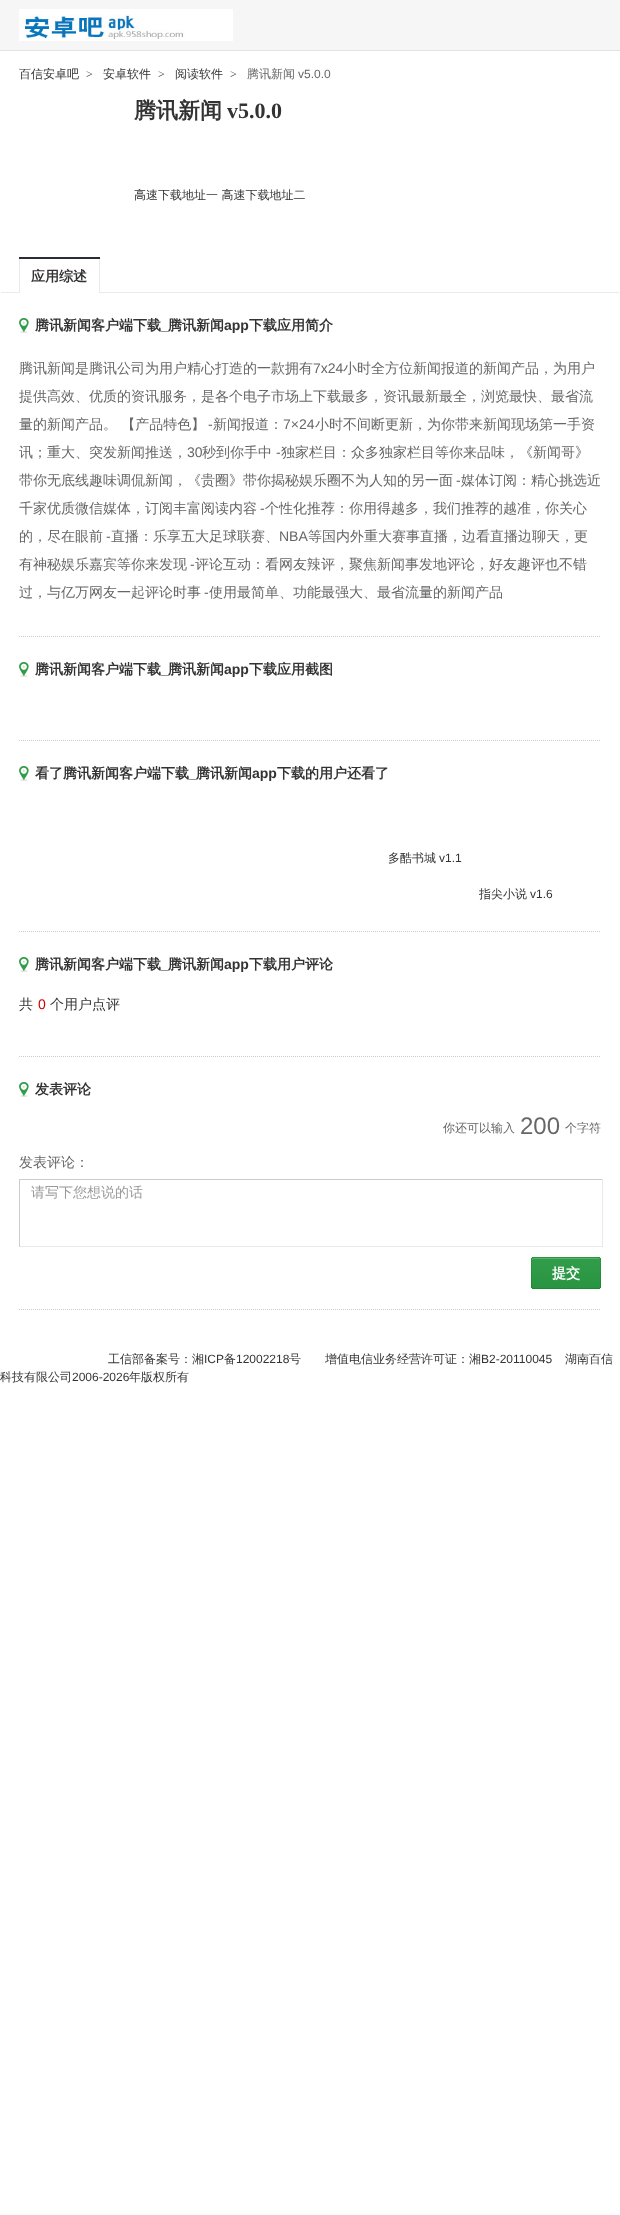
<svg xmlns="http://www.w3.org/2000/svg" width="620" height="2215">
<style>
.a{font:500 12px WenQuanYi Zen Hei;fill:#333}
.b{font:12px Liberation Serif;fill:#45464c}
.c{font:500 12px WenQuanYi Zen Hei;fill:#666}
.d{font:12px Liberation Sans;fill:#666}
.e{font:bold 22px WenQuanYi Zen Hei;fill:#333}
.f{font:bold 22px Liberation Serif;fill:#333}
.g{font:bold 14px WenQuanYi Zen Hei;fill:#333}
.h{font:bold 14px Liberation Sans;fill:#333}
.i{font:500 14px WenQuanYi Zen Hei;fill:#666}
.j{font:14px Liberation Sans;fill:#666}
.k{font:12px Liberation Sans;fill:#333}
.l{font:500 14px WenQuanYi Zen Hei;fill:#333}
.m{font:14px Liberation Sans;fill:#c00}
.n{font:24px Liberation Sans;fill:#666}
.o{font:500 14px WenQuanYi Zen Hei;fill:#999}
.p{font:bold 14px WenQuanYi Zen Hei;fill:#fff}
</style>
<rect width="100%" height="100%" fill="#fff"/>
<path fill="#f6f6f6" d="M0 0h620v50H0z"/>
<path fill="#e2e2e2" d="M0 50h620v1H0z"/>
<image href="1.png" x="19" y="9" width="214" height="32"/>
<path fill="#eaeaea" d="M1 292h618v1H1z"/>
<path fill="#fff" d="M20 292h79v1H20z"/>
<path fill="#292d33" d="M19 257h81v2H19z"/>
<path fill="#eaeaea" d="M99 259h1v34H99z"/>
<path fill="#eaeaea" d="M19 259h1v34H19z"/>
<path fill="none" stroke="#ccc" stroke-dasharray="1 1" d="M19 636.5h582"/>
<image href="2.png" x="19" y="318" width="10" height="15"/>
<path fill="none" stroke="#ccc" stroke-dasharray="1 1" d="M19 740.5h582"/>
<image href="2.png" x="19" y="662" width="10" height="15"/>
<path fill="none" stroke="#ccc" stroke-dasharray="1 1" d="M19 931.5h582"/>
<image href="2.png" x="19" y="766" width="10" height="15"/>
<path fill="none" stroke="#ccc" stroke-dasharray="1 1" d="M19 1056.5h582"/>
<image href="2.png" x="19" y="957" width="10" height="15"/>
<path fill="none" stroke="#ccc" stroke-dasharray="1 1" d="M19 1309.5h582"/>
<image href="2.png" x="19" y="1082" width="10" height="15"/>
<path fill="#ccc" d="M19 1179h584v1H19z"/>
<path fill="#e9e9e9" d="M602 1179h1v68H602z"/>
<path fill="#e9e9e9" d="M19 1246h584v1H19z"/>
<path fill="#ccc" d="M19 1179h1v68H19z"/>
<image href="3.png" x="531" y="1257" width="70" height="32"/>
<text class="a" x="19" y="78">百信安卓吧</text>
<text class="b" x="86" y="78">&gt;</text>
<text class="a" x="103" y="78">安卓软件</text>
<text class="b" x="158" y="78">&gt;</text>
<text class="a" x="175" y="78">阅读软件</text>
<text class="b" x="230" y="78">&gt;</text>
<text class="c" x="247" y="78">腾讯新闻</text>
<text class="d" x="298" y="78">v5.0.0</text>
<text class="e" x="134" y="118">腾讯新闻</text>
<text class="f" x="227" y="118">v5.0.0</text>
<text class="a" x="134" y="199">高速下载地址一 高速下载地址二</text>
<text class="g" x="31" y="281">应用综述</text>
<text class="g" x="35" y="330">腾讯新闻客户端下载</text>
<text class="h" x="161" y="330">_</text>
<text class="g" x="168" y="330">腾讯新闻</text>
<text class="h" x="224" y="330">app</text>
<text class="g" x="249" y="330">下载应用简介</text>
<text class="i" x="19" y="373">腾讯新闻是腾讯公司为用户精心打造的一款拥有</text>
<text class="j" x="313" y="373">7x24</text>
<text class="i" x="343" y="373">小时全方位新闻报道的新闻产品，为用户</text>
<text class="i" x="19" y="401">提供高效、优质的资讯服务，是各个电子市场上下载最多，资讯最新最全，浏览最快、最省流</text>
<text class="i" x="19" y="429">量的新闻产品。 【产品特色】</text>
<text class="j" x="208" y="429">-</text>
<text class="i" x="213" y="429">新闻报道：</text>
<text class="j" x="283" y="429">7×24</text>
<text class="i" x="315" y="429">小时不间断更新，为你带来新闻现场第一手资</text>
<text class="i" x="19" y="457">讯；重大、突发新闻推送，</text>
<text class="j" x="187" y="457">30</text>
<text class="i" x="202" y="457">秒到你手中</text>
<text class="j" x="276" y="457">-</text>
<text class="i" x="281" y="457">独家栏目：众多独家栏目等你来品味，《新闻哥》</text>
<text class="i" x="19" y="485">带你无底线趣味调侃新闻，《贵圈》带你揭秘娱乐圈不为人知的另一面</text>
<text class="j" x="456" y="485">-</text>
<text class="i" x="461" y="485">媒体订阅：精心挑选近</text>
<text class="i" x="19" y="513">千家优质微信媒体，订阅丰富阅读内容</text>
<text class="j" x="260" y="513">-</text>
<text class="i" x="265" y="513">个性化推荐：你用得越多，我们推荐的越准，你关心</text>
<text class="i" x="19" y="541">的，尽在眼前</text>
<text class="j" x="106" y="541">-</text>
<text class="i" x="111" y="541">直播：乐享五大足球联赛、</text>
<text class="j" x="279" y="541">NBA</text>
<text class="i" x="308" y="541">等国内外重大赛事直播，边看直播边聊天，更</text>
<text class="i" x="19" y="569">有神秘娱乐嘉宾等你来发现</text>
<text class="j" x="190" y="569">-</text>
<text class="i" x="195" y="569">评论互动：看网友辣评，聚焦新闻事发地评论，好友趣评也不错</text>
<text class="i" x="19" y="597">过，与亿万网友一起评论时事</text>
<text class="j" x="204" y="597">-</text>
<text class="i" x="209" y="597">使用最简单、功能最强大、最省流量的新闻产品</text>
<text class="g" x="35" y="674">腾讯新闻客户端下载</text>
<text class="h" x="161" y="674">_</text>
<text class="g" x="168" y="674">腾讯新闻</text>
<text class="h" x="224" y="674">app</text>
<text class="g" x="249" y="674">下载应用截图</text>
<text class="g" x="35" y="778">看了腾讯新闻客户端下载</text>
<text class="h" x="189" y="778">_</text>
<text class="g" x="196" y="778">腾讯新闻</text>
<text class="h" x="252" y="778">app</text>
<text class="g" x="277" y="778">下载的用户还看了</text>
<text class="a" x="388" y="862">多酷书城</text>
<text class="k" x="439" y="862">v1.1</text>
<text class="a" x="479" y="898">指尖小说</text>
<text class="k" x="530" y="898">v1.6</text>
<text class="g" x="35" y="969">腾讯新闻客户端下载</text>
<text class="h" x="161" y="969">_</text>
<text class="g" x="168" y="969">腾讯新闻</text>
<text class="h" x="224" y="969">app</text>
<text class="g" x="249" y="969">下载用户评论</text>
<text class="l" x="19" y="1009">共</text>
<text class="m" x="38" y="1009">0</text>
<text class="l" x="50" y="1009">个用户点评</text>
<text class="g" x="35" y="1094">发表评论</text>
<text class="c" x="443" y="1132">你还可以输入</text>
<text class="n" x="520" y="1134">200</text>
<text class="c" x="565" y="1132">个字符</text>
<text class="i" x="19" y="1167">发表评论：</text>
<text class="o" x="31" y="1197">请写下您想说的话</text>
<text class="p" x="552" y="1278">提交</text>
<text class="a" x="108" y="1363">工信部备案号：湘</text>
<text class="k" x="204" y="1363">ICP</text>
<text class="a" x="224" y="1363">备</text>
<text class="k" x="236" y="1363">12002218</text>
<text class="a" x="289" y="1363">号</text>
<text class="a" x="325" y="1363">增值电信业务经营许可证：湘</text>
<text class="k" x="481" y="1363">B2-20110045</text>
<text class="a" x="565" y="1363">湖南百信</text>
<text class="a" x="0" y="1381">科技有限公司</text>
<text class="k" x="72" y="1381">2006-2026</text>
<text class="a" x="129" y="1381">年版权所有</text>
</svg>
